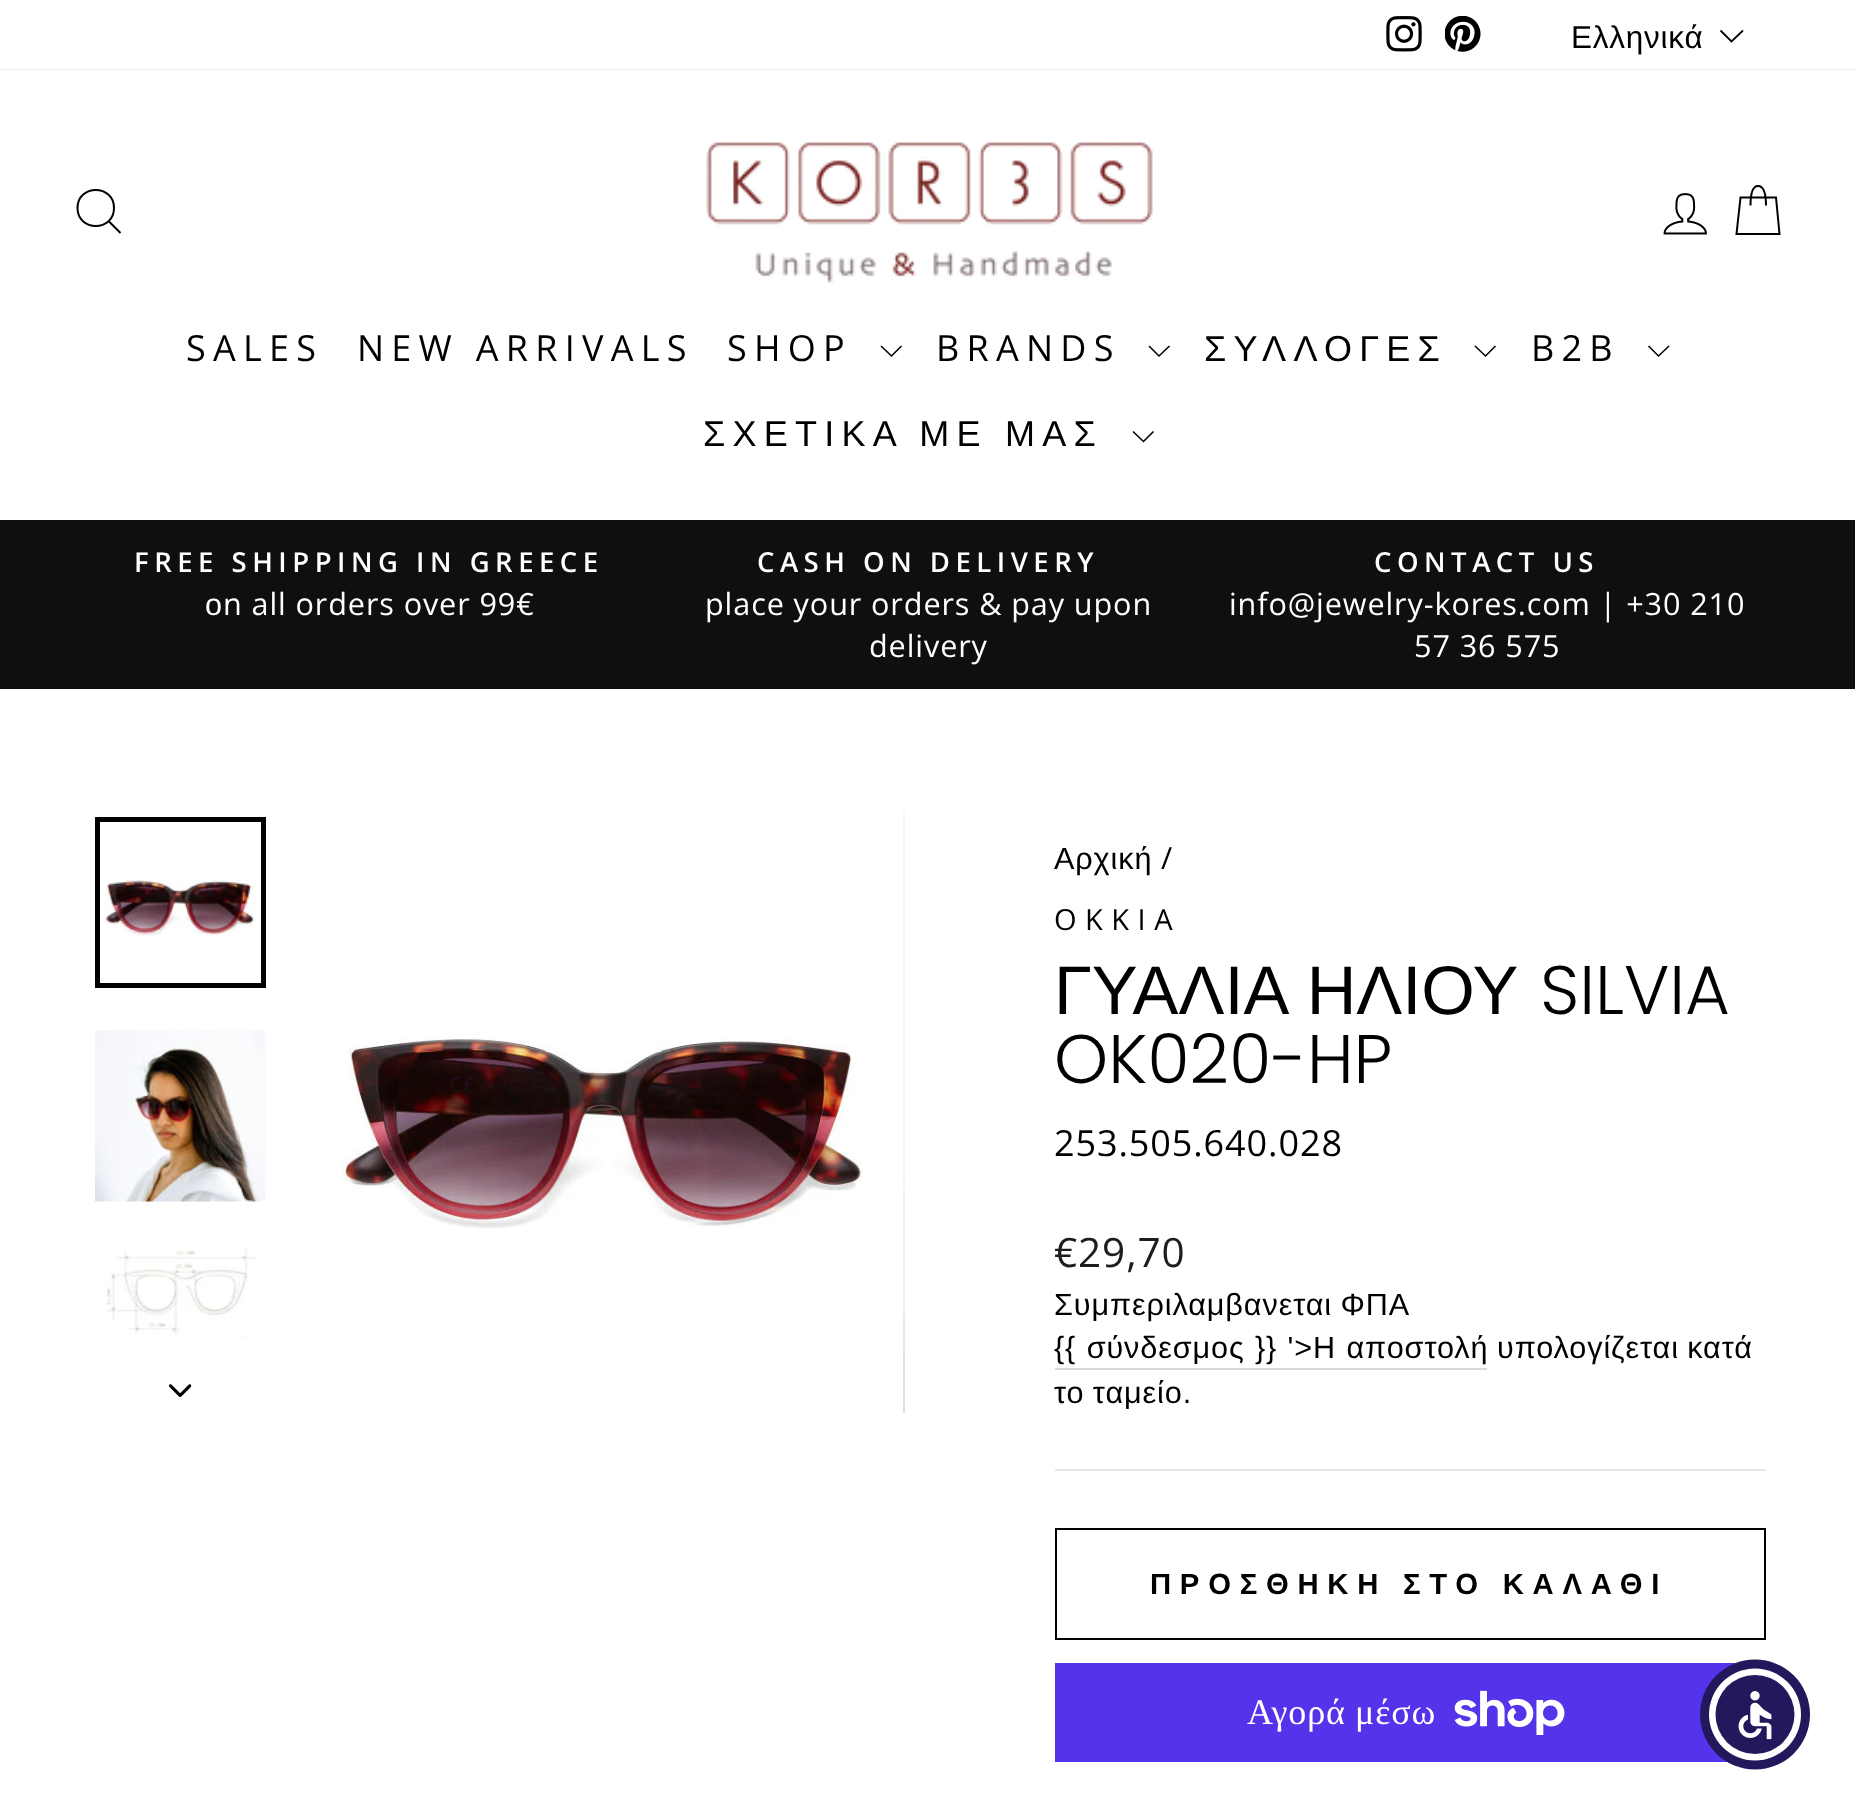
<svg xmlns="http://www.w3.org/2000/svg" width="1855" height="1814">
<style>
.a{font:31.5px Liberation Sans;letter-spacing:0.75px;fill:#000}
.b{font:36px Open Sans;letter-spacing:7.25px;fill:#000}
.c{font:36px Liberation Sans;letter-spacing:7.25px;fill:#000}
.d{font:600 27.5px Open Sans;letter-spacing:5.5px;fill:#fff}
.e{font:30.6px Liberation Sans;letter-spacing:0.9px;fill:#fff}
.f{font:30.6px Open Sans;letter-spacing:0.9px;fill:#fff}
.g{font:30.6px Liberation Sans;letter-spacing:0.9px;fill:#000}
.h{font:30.6px Open Sans;letter-spacing:0.9px;fill:#000}
.i{font:29px Open Sans;letter-spacing:8.5px;fill:#000}
.j{font:68.75px Liberation Sans;fill:#000}
.k{font:300 68.75px Poppins;fill:#000}
.l{font:36px Open Sans;letter-spacing:0.9px;fill:#000}
.m{font:40.5px Open Sans;letter-spacing:0.9px;fill:#1c1d1d}
.n{font:bold 29.25px Liberation Sans;letter-spacing:8.75px;fill:#000}
.o{font:36px Liberation Serif;letter-spacing:0.9px;fill:#fff}
</style>
<rect width="100%" height="100%" fill="#fff"/>
<image href="1.png" x="1386" y="16" width="36" height="36"/>
<image href="2.png" x="1445" y="16" width="36" height="36"/>
<path fill="none" stroke="#000" stroke-width="1.8" d="M1720.5 30.5l11 11l11.5-11"/>
<path fill="#0f0f0f" d="M0 520h1855v169H0z"/>
<path fill="#00000033" filter="blur(1px)" d="M0 70h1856v450H0z"/>
<path fill="#fff" d="M0 70h1855v450H0z"/>
<path fill="none" stroke="#000" stroke-width="2" d="M114 208c0 24-36.5 24-36.5 0c0-24 36.5-24 36.5 0zm6.5 25l-11.5-11.5"/>
<image href="3.png" x="706" y="142" width="447" height="141"/>
<image href="4.png" x="1663" y="193" width="44" height="42"/>
<path fill="none" stroke="#000" stroke-width="2" d="M1750.5 205.5c0-15.5 3.5-19.5 7.5-19.5c4.5 0 8 4 8 19.5m-25.5-8h35.5l3.5 36.5h-43z"/>
<path fill="none" stroke="#000" stroke-width="1.6" d="M881 346l10.5 10l10-10"/>
<path fill="none" stroke="#000" stroke-width="1.6" d="M1149 346l10 10l10.5-10"/>
<path fill="none" stroke="#000" stroke-width="1.6" d="M1475 346l10.5 10l10-10"/>
<path fill="none" stroke="#000" stroke-width="1.6" d="M1648.5 346l10 10l10.5-10"/>
<path fill="none" stroke="#000" stroke-width="1.6" d="M1133 431.5l10.5 10l10-10"/>
<image href="5.png" x="105" y="877" width="150" height="61"/>
<path fill="none" stroke="#000" stroke-width="5" d="M97.5 819.5h166v166H97.5z"/>
<image href="6.png" x="95" y="1030" width="171" height="172"/>
<image href="7.png" x="106" y="1247" width="151" height="92"/>
<image href="8.png" x="169" y="1384" width="23" height="13"/>
<image href="9.png" x="341" y="1037" width="522" height="192"/>
<image href="10.png" x="903" y="812" width="2" height="601"/>
<path fill="#d9d9d9" d="M1055 1368h432v2H1055z"/>
<path fill="#e8e8e1" d="M1055 1469h711v2H1055z"/>
<path fill="none" stroke="#000" stroke-width="2" d="M1056 1529h709v110H1056z"/>
<path fill="#5433eb" d="M1055 1663h681v99H1055z"/>
<image href="11.png" x="1454" y="1690" width="111" height="45"/>
<circle fill="#23185c" cx="1755" cy="1714.5" r="55"/>
<circle fill="#fff" cx="1755" cy="1714.5" r="46"/>
<circle fill="#23185c" cx="1755" cy="1714.5" r="39.5"/>
<image href="12.png" x="1738" y="1691" width="34" height="49"/>
<text class="a" x="1571" y="48">Ελληνικά</text>
<text class="b" x="186" y="361">SALES</text>
<text class="b" x="357" y="361">NEW ARRIVALS</text>
<text class="b" x="727" y="361">SHOP</text>
<text class="b" x="936" y="361">BRANDS</text>
<text class="c" x="1204" y="361">ΣΥΛΛΟΓΕΣ</text>
<text class="b" x="1531" y="361">B2B</text>
<text class="c" x="703" y="446">ΣΧΕΤΙΚΑ ΜΕ ΜΑΣ</text>
<text class="d" x="134" y="572">FREE SHIPPING IN GREECE</text>
<text class="e" x="205" y="615">ο</text>
<text class="f" x="223" y="615">n all orders over 99€</text>
<text class="d" x="757" y="572">CASH ON DELIVERY</text>
<text class="f" x="705" y="615">place your orders &amp; pay upon</text>
<text class="f" x="869" y="657">delivery</text>
<text class="d" x="1374" y="572">CONTACT US</text>
<text class="f" x="1229" y="615">info@jewelry-kores.com | +30 210</text>
<text class="f" x="1414" y="657">57 36 575</text>
<text class="g" x="1054" y="869">Αρχική</text>
<text class="h" x="1161" y="869">/</text>
<text class="i" x="1054" y="930">OKKIA</text>
<text class="j" x="1054" y="1014" word-spacing="2">ΓΥΑΛΙΑ ΗΛΙΟΥ</text>
<text class="k" x="1540" y="1014">SILVIA</text>
<text class="k" x="1054" y="1083">OK020-HP</text>
<text class="l" x="1054" y="1156">253.505.640.028</text>
<text class="m" x="1054" y="1267">€29,70</text>
<text class="g" x="1054" y="1315" word-spacing="-1">Συμπεριλαμβανεται ΦΠΑ</text>
<text class="g" x="1054" y="1358" word-spacing="1">{{ σύνδεσμος }} '&gt;Η αποστολή</text>
<text class="g" x="1497" y="1358" word-spacing="-1">υπολογίζεται κατά</text>
<text class="g" x="1054" y="1403" word-spacing="-1">το ταμείο.</text>
<text class="n" x="1150" y="1594" word-spacing="-1">ΠΡΟΣΘΗΚΗ ΣΤΟ ΚΑΛΑΘΙ</text>
<text class="o" x="1247" y="1724">Αγορά</text>
<text class="o" x="1355" y="1724">μέσω</text>
</svg>
